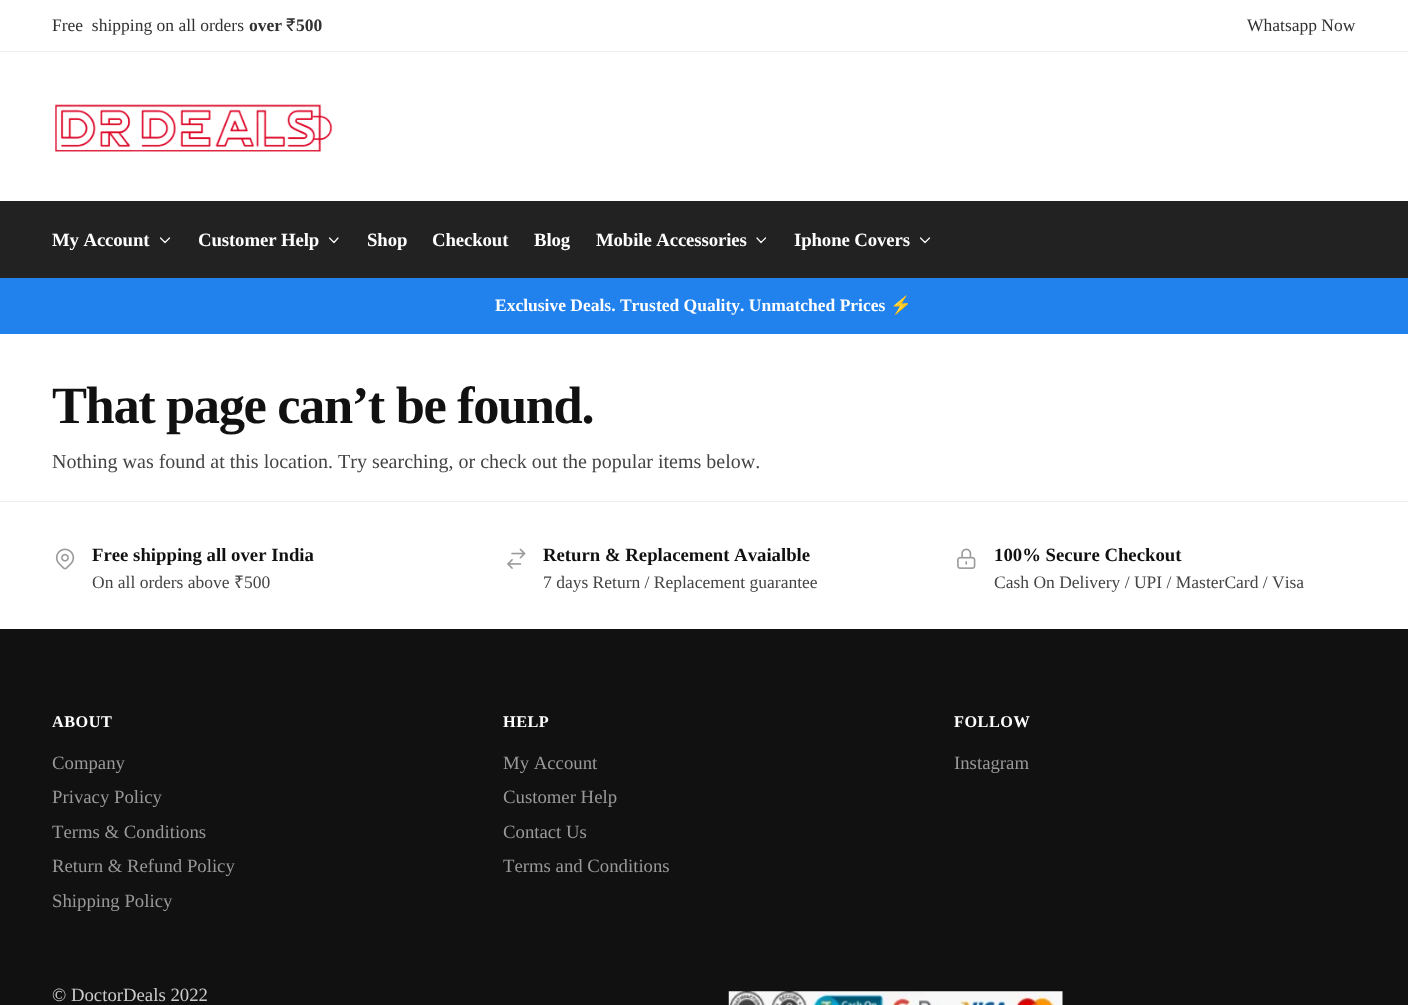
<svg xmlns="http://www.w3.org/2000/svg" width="1426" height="1005">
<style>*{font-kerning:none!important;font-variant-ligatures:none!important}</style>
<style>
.a{font:17.5px Liberation Serif;fill:#323232}
.b{font:bold 17.5px Liberation Serif;fill:#323232}
.c{font:17.5px Inter;fill:#323232}
.d{font:bold 18.75px Liberation Serif;letter-spacing:-0.1px;fill:#fff}
.e{font:bold 17.5px Liberation Serif;fill:#fff}
.f{font:bold 17.5px Noto Color Emoji;fill:#fff}
.g{font:bold 52.5px Liberation Serif;letter-spacing:-1.4px;fill:#111}
.h{font:20px Liberation Serif;fill:#444}
.i{font:bold 18.75px Liberation Serif;fill:#111}
.j{font:17.5px Liberation Serif;fill:#444}
.k{font:17.5px Noto Sans;fill:#444}
.l{font:bold 16.25px Liberation Serif;letter-spacing:0.5px;fill:#fff}
.m{font:18.75px Liberation Serif;fill:#999}
.n{font:18.75px Liberation Serif;fill:#ccc}
</style>
<rect width="100%" height="100%" fill="#fff"/>
<path fill="#eee" d="M0 51h1408v1H0z"/>
<image href="1.png" x="55" y="104" width="278" height="48"/>
<path fill="#222" d="M0 201h1408v77H0z"/>
<path fill="none" stroke="#fff" stroke-width="1.2" stroke-linecap="round" stroke-linejoin="round" d="M169.5 238l-4.5 4.5l-4.5-4.5"/>
<path fill="none" stroke="#fff" stroke-width="1.2" stroke-linecap="round" stroke-linejoin="round" d="M338 238l-4 4.5l-4.5-4.5"/>
<path fill="none" stroke="#fff" stroke-width="1.2" stroke-linecap="round" stroke-linejoin="round" d="M765.5 238l-4.5 4.5l-4-4.5"/>
<path fill="none" stroke="#fff" stroke-width="1.2" stroke-linecap="round" stroke-linejoin="round" d="M929.5 238l-4.5 4.5l-4.5-4.5"/>
<path fill="#2182ed" d="M0 278h1408v56H0z"/>
<path fill="#eee" d="M0 501h1408v1H0z"/>
<image href="2.png" x="55" y="548" width="20" height="22"/>
<image href="3.png" x="507" y="548" width="19" height="21"/>
<image href="4.png" x="957" y="548" width="19" height="21"/>
<path fill="#111" d="M0 629h1408v376H0z"/>
<image href="5.png" x="728" y="991" width="335" height="14"/>
<text class="a" xml:space="preserve" x="52" y="31">Free  shipping on all orders</text>
<text class="b" x="249" y="31">over</text>
<text class="c" x="286" y="31">₹</text>
<text class="b" x="296" y="31">500</text>
<text class="a" x="1247" y="31">Whatsapp Now</text>
<text class="d" x="52" y="246">My Account</text>
<text class="d" x="198" y="246">Customer Help</text>
<text class="d" x="367" y="246">Shop</text>
<text class="d" x="432" y="246">Checkout</text>
<text class="d" x="534" y="246">Blog</text>
<text class="d" x="596" y="246">Mobile Accessories</text>
<text class="d" x="794" y="246">Iphone Covers</text>
<text class="e" x="495" y="311">Exclusive Deals. Trusted Quality. Unmatched Prices</text>
<text class="f" x="890" y="311">⚡</text>
<text class="g" x="52" y="423">That page can’t be found.</text>
<text class="h" x="52" y="468">Nothing was found at this location. Try searching, or check out the popular items below.</text>
<text class="i" x="92" y="561">Free shipping all over India</text>
<text class="j" x="92" y="588">On all orders above</text>
<text class="k" x="234" y="588">₹</text>
<text class="j" x="244" y="588">500</text>
<text class="i" x="543" y="561">Return &amp; Replacement Avaialble</text>
<text class="j" x="543" y="588">7 days Return / Replacement guarantee</text>
<text class="i" x="994" y="561">100% Secure Checkout</text>
<text class="j" x="994" y="588">Cash On Delivery / UPI / MasterCard / Visa</text>
<text class="l" x="52" y="727">ABOUT</text>
<text class="m" x="52" y="769">Company</text>
<text class="m" x="52" y="803">Privacy Policy</text>
<text class="m" x="52" y="838">Terms &amp; Conditions</text>
<text class="m" x="52" y="872">Return &amp; Refund Policy</text>
<text class="m" x="52" y="907">Shipping Policy</text>
<text class="l" x="503" y="727">HELP</text>
<text class="m" x="503" y="769">My Account</text>
<text class="m" x="503" y="803">Customer Help</text>
<text class="m" x="503" y="838">Contact Us</text>
<text class="m" x="503" y="872">Terms and Conditions</text>
<text class="l" x="954" y="727">FOLLOW</text>
<text class="m" x="954" y="769">Instagram</text>
<text class="n" x="52" y="1001">© DoctorDeals 2022</text>
</svg>
